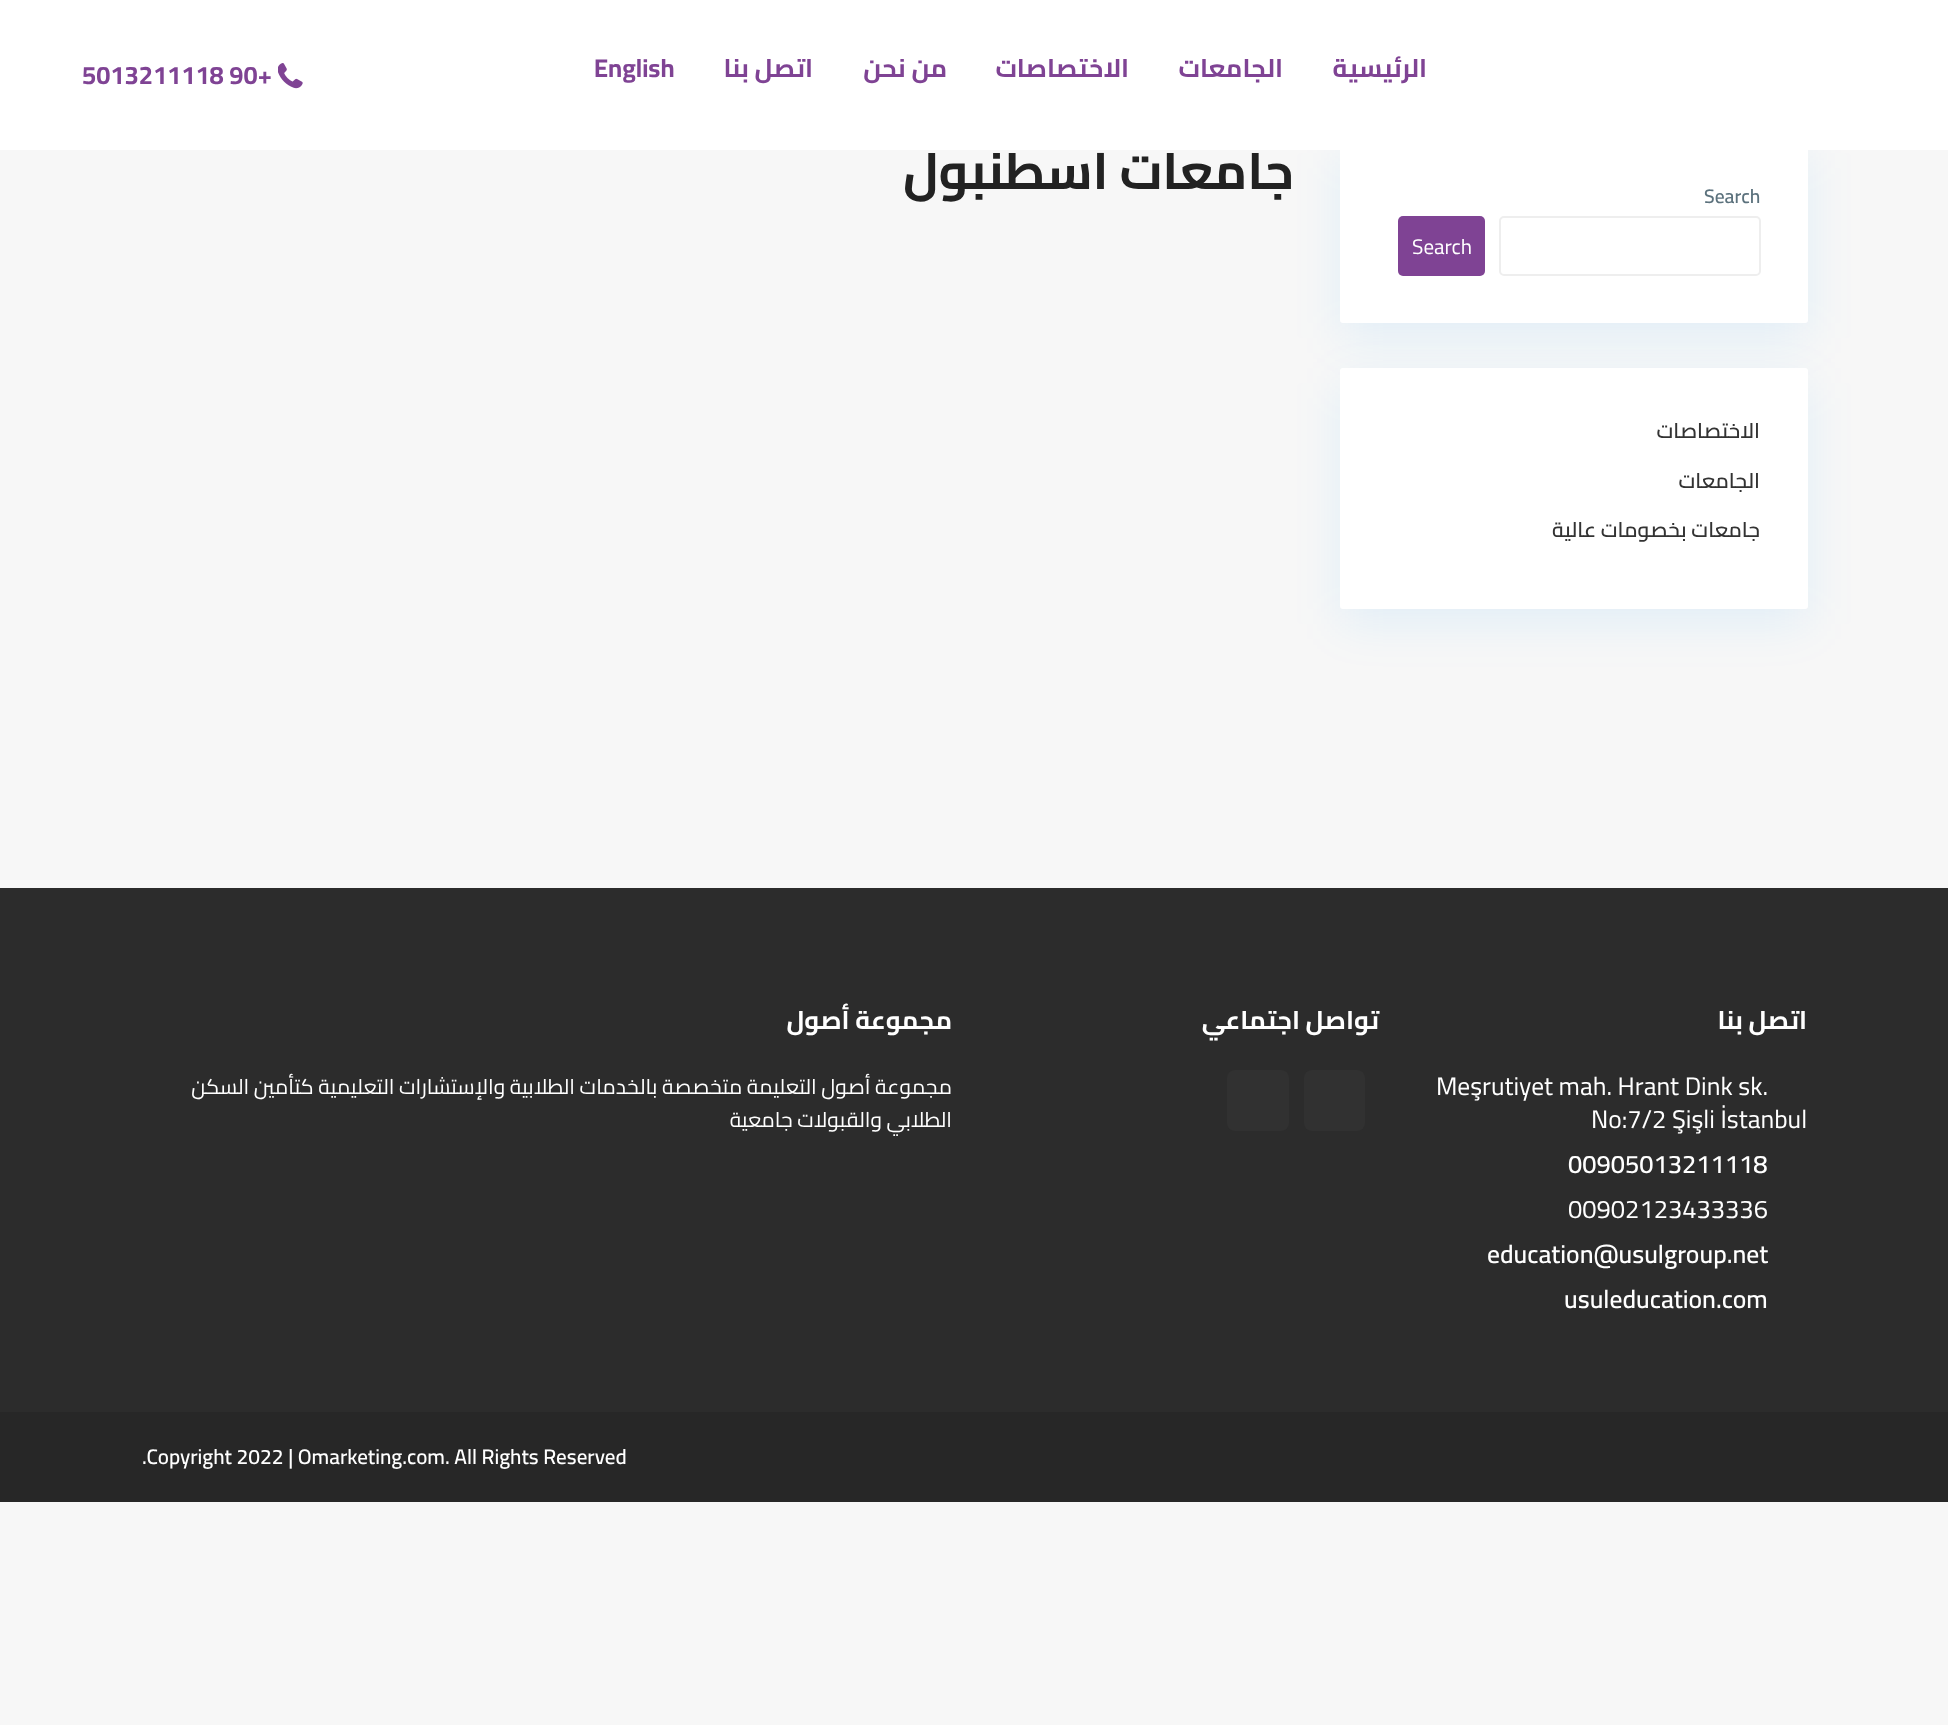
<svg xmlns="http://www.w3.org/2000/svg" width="1948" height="1725">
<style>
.a{font:bold 25.5px Cairo;direction:rtl;fill:#7f4394}
.b{font:bold 25.5px Cairo;fill:#7f4394}
.c{font:bold 51px Cairo;direction:rtl;fill:#222}
.d{font:600 19.5px Cairo;fill:#5c727d}
.e{font:21px Cairo;fill:#fff}
.f{font:600 21px Cairo;direction:rtl;fill:#333}
.g{font:bold 25.5px Cairo;direction:rtl;fill:#fff}
.h{font:25.5px Cairo;fill:#fff}
.i{font:600 25.5px Cairo;fill:#fff}
.j{font:21px Cairo;direction:rtl;fill:#fff}
.k{font:600 21px Cairo;fill:#fff}
</style>
<rect width="100%" height="100%" fill="#f7f7f7"/>
<rect fill="#0798ff17" filter="blur(23px)" x="1340" y="153" width="468" height="185" rx="3"/>
<rect fill="#fff" stroke="#fff" stroke-width="2" x="1341" y="139" width="466" height="183" rx="2"/>
<path fill="#fff" d="M0 0h1948v150H0z"/>
<image href="1.png" x="278" y="63" width="25" height="26"/>
<rect fill="none" stroke="#eee" stroke-width="2" x="1500" y="217" width="260" height="58" rx="4"/>
<rect fill="#7f4394" x="1398" y="216" width="87" height="60" rx="5"/>
<rect fill="#0798ff17" filter="blur(23px)" x="1340" y="383" width="468" height="241" rx="3"/>
<rect fill="#fff" stroke="#fff" stroke-width="2" x="1341" y="369" width="466" height="239" rx="2"/>
<path fill="#2c2c2c" d="M0 888h1948v524H0z"/>
<rect fill="#313131" x="1304" y="1070" width="61" height="61" rx="8"/>
<rect fill="#313131" x="1227" y="1070" width="62" height="61" rx="8"/>
<path fill="#272727" d="M0 1412h1948v90H0z"/>
<text class="a" x="1427" y="77">الرئيسية</text>
<text class="a" x="1283" y="77">الجامعات</text>
<text class="a" x="1129" y="77">الاختصاصات</text>
<text class="a" x="947" y="77">من نحن</text>
<text class="a" x="813" y="77">اتصل بنا</text>
<text class="b" x="594" y="77">English</text>
<text class="b" x="82" y="84">5013211118 90+</text>
<text class="c" x="1294" y="189">جامعات اسطنبول</text>
<text class="d" x="1704" y="203">Search</text>
<text class="e" x="1412" y="254">Search</text>
<text class="f" x="1760" y="438">الاختصاصات</text>
<text class="f" x="1760" y="488">الجامعات</text>
<text class="f" x="1760" y="537">جامعات بخصومات عالية</text>
<text class="g" x="1807" y="1029">اتصل بنا</text>
<text class="h" x="1436" y="1095">Meşrutiyet mah. Hrant Dink sk.</text>
<text class="h" x="1591" y="1128">No:7/2 Şişli İstanbul</text>
<text class="i" x="1568" y="1173">00905013211118</text>
<text class="h" x="1568" y="1218">00902123433336</text>
<text class="i" x="1487" y="1263">education@usulgroup.net</text>
<text class="i" x="1564" y="1308">usuleducation.com</text>
<text class="g" x="1379" y="1029">تواصل اجتماعي</text>
<text class="g" x="952" y="1029">مجموعة أصول</text>
<text class="j" x="952" y="1094">مجموعة أصول التعليمة متخصصة بالخدمات الطلابية والإستشارات التعليمية كتأمين السكن</text>
<text class="j" x="952" y="1127">الطلابي والقبولات جامعية</text>
<text class="k" x="142" y="1464">.Copyright 2022 | Omarketing.com. All Rights Reserved</text>
</svg>
